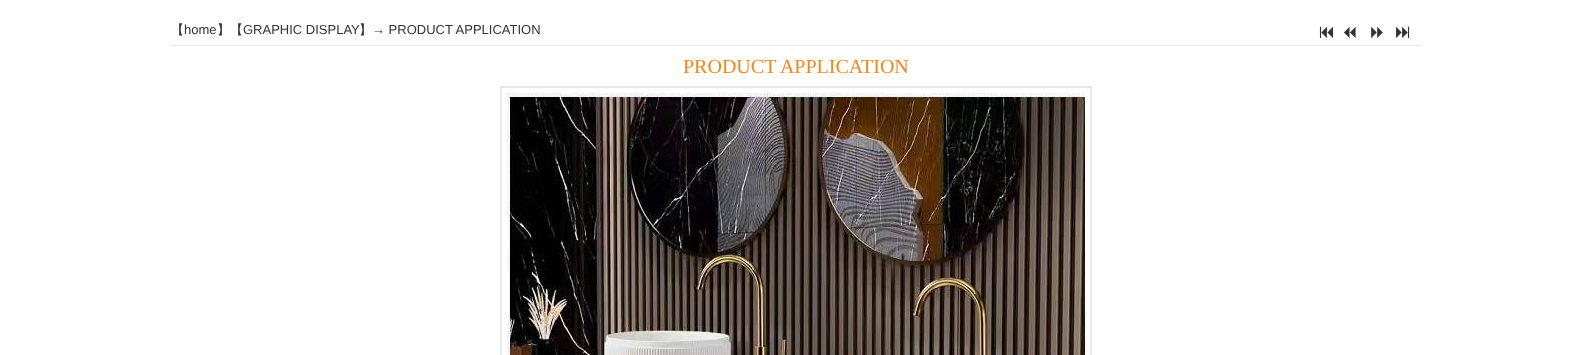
<svg xmlns="http://www.w3.org/2000/svg" width="1592" height="355">
<style>
.a{font:500 13px WenQuanYi Zen Hei;fill:#333}
.b{font:13px Liberation Sans;fill:#333}
.c{font:18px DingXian;fill:#333}
.d{font:20px Liberation Serif;fill:#f5861a}
</style>
<rect width="100%" height="100%" fill="#fff"/>
<path fill="#e8e8e8" d="M171 45h1250v1H171z"/>
<path fill="none" stroke="#e8e8e8" stroke-width="2" d="M501 87h590v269H501z"/>
<image href="1.png" x="507" y="93" width="578" height="262"/>
<text class="a" x="171" y="34">【</text>
<text class="b" x="184" y="34">home</text>
<text class="a" x="217" y="34">】【</text>
<text class="b" x="243" y="34">GRAPHIC DISPLAY</text>
<text class="a" x="359" y="34">】</text>
<text class="b" x="372" y="34">→ PRODUCT APPLICATION</text>
<text class="c" x="1327" y="38">7256</text>
<text class="d" x="683" y="73">PRODUCT APPLICATION</text>
</svg>
